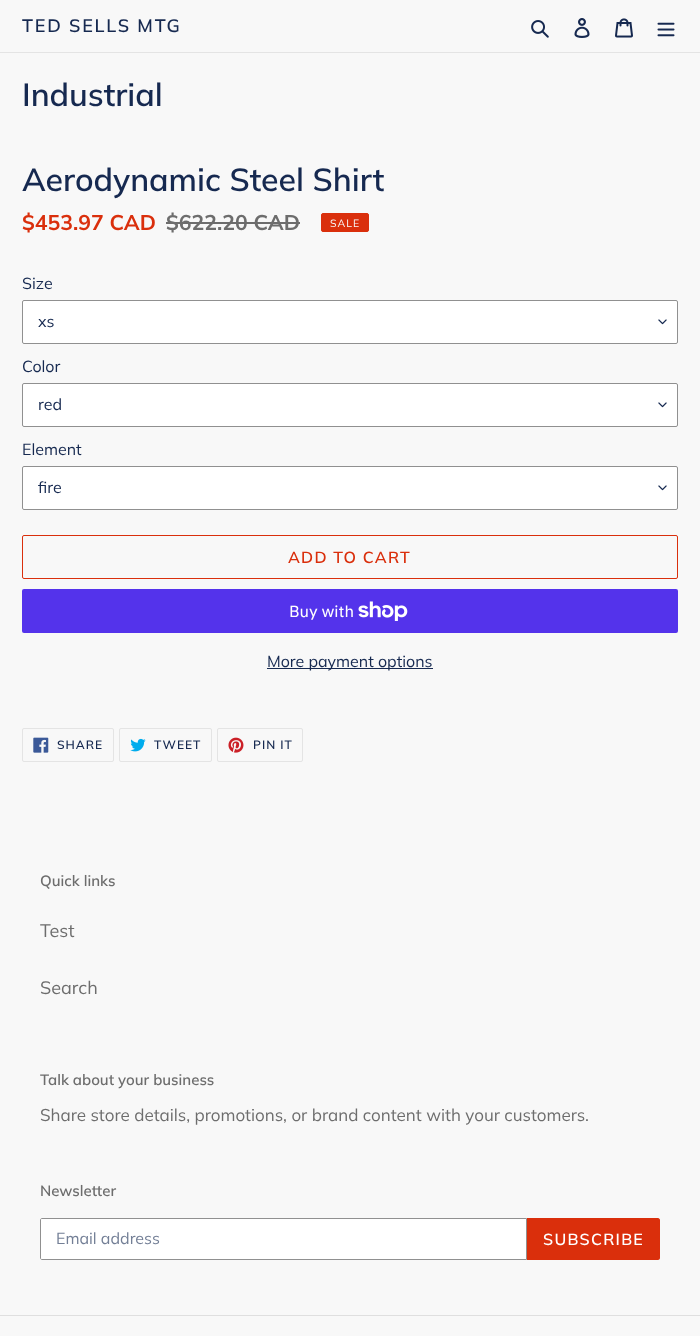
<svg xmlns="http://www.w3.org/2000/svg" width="700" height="1336">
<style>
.a{font:600 18px Muli;letter-spacing:1.75px;fill:#162950}
.b{font:600 32px Muli;fill:#162950}
.c{font:bold 21.25px Muli;fill:#da2f0c}
.d{font:bold 21.25px Muli;fill:#6d6d6d}
.e{font:10.5px Muli;letter-spacing:1px;fill:#f8f8f8}
.f{font:16px Muli;fill:#162950}
.g{font:600 16px Muli;letter-spacing:1.25px;fill:#da2f0c}
.h{font:16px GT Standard;fill:#fff}
.i{font:600 12px Muli;letter-spacing:1px;fill:#162950}
.j{font:600 15px Muli;fill:#6d6d6d}
.k{font:18px Muli;fill:#6d6d6d}
.l{font:17px Muli;fill:#6d6d6d}
.m{font:16px Muli;fill:#737f96}
.n{font:600 16px Muli;letter-spacing:1.25px;fill:#fff}
</style>
<rect width="100%" height="100%" fill="#f8f8f8"/>
<path fill="#e4e4e4" d="M0 52h700v1H0z"/>
<image href="1.png" x="531" y="20" width="18" height="18"/>
<image href="2.png" x="574" y="18" width="16" height="20"/>
<image href="3.png" x="615" y="18" width="18" height="20"/>
<image href="4.png" x="657" y="22" width="18" height="15"/>
<path fill="#6d6d6d" d="M166 222h134v2H166z"/>
<rect fill="#da2f0c" stroke="#da2f0c" x="321.5" y="213.5" width="47" height="18" rx="1.5"/>
<rect fill="#fff" x="22" y="300" width="656" height="44" rx="2"/>
<image href="5.png" x="658" y="319" width="9" height="6"/>
<rect fill="none" stroke="#909090" x="22.5" y="300.5" width="655" height="43" rx="1.5"/>
<rect fill="#fff" x="22" y="383" width="656" height="44" rx="2"/>
<image href="5.png" x="658" y="402" width="9" height="6"/>
<rect fill="none" stroke="#909090" x="22.5" y="383.5" width="655" height="43" rx="1.5"/>
<rect fill="#fff" x="22" y="466" width="656" height="44" rx="2"/>
<image href="5.png" x="658" y="485" width="9" height="6"/>
<rect fill="none" stroke="#909090" x="22.5" y="466.5" width="655" height="43" rx="1.5"/>
<rect fill="none" stroke="#da2f0c" x="22.5" y="535.5" width="655" height="43" rx="1.5"/>
<rect fill="#5433eb" x="22" y="589" width="656" height="44" rx="2"/>
<image href="6.png" x="358" y="601" width="50" height="20"/>
<path fill="#162950" d="M267 668h166v1H267z"/>
<rect fill="none" stroke="#e4e4e4" x="22.5" y="728.5" width="91" height="33" rx="1.5"/>
<image href="7.png" x="33" y="737" width="16" height="16"/>
<rect fill="none" stroke="#e4e4e4" x="119.5" y="728.5" width="92" height="33" rx="1.5"/>
<image href="8.png" x="130" y="738" width="16" height="14"/>
<rect fill="none" stroke="#e4e4e4" x="217.5" y="728.5" width="85" height="33" rx="1.5"/>
<image href="9.png" x="228" y="737" width="16" height="16"/>
<path fill="#fff" stroke="#909090" d="M42 1218.5h484.5v41h-484.5c-1 0-1.5-.5-1.5-1.5v-38c0-1 .5-1.5 1.5-1.5z"/>
<path fill="#da2f0c" d="M527 1218h131c1 0 2 1 2 2v38c0 1-1 2-2 2h-131z"/>
<path fill="#dfdfdf" d="M0 1315h700v1H0z"/>
<text class="a" x="22" y="32">TED SELLS MTG</text>
<text class="b" x="22" y="106">Industrial</text>
<text class="b" x="22" y="191">Aerodynamic Steel Shirt</text>
<text class="c" x="22" y="230">$453.97 CAD</text>
<text class="d" x="166" y="230">$622.20 CAD</text>
<text class="e" x="330" y="227">SALE</text>
<text class="f" x="22" y="289">Size</text>
<text class="f" x="38" y="327">xs</text>
<text class="f" x="22" y="372">Color</text>
<text class="f" x="38" y="410">red</text>
<text class="f" x="22" y="455">Element</text>
<text class="f" x="38" y="493">fire</text>
<text class="g" x="288" y="563">ADD TO CART</text>
<text class="h" x="289" y="617">Buy with</text>
<text class="f" x="267" y="667">More payment options</text>
<text class="i" x="57" y="749">SHARE</text>
<text class="i" x="154" y="749">TWEET</text>
<text class="i" x="253" y="749">PIN IT</text>
<text class="j" x="40" y="886">Quick links</text>
<text class="k" x="40" y="937">Test</text>
<text class="k" x="40" y="994">Search</text>
<text class="j" x="40" y="1085">Talk about your business</text>
<text class="l" x="40" y="1121">Share store details, promotions, or brand content with your customers.</text>
<text class="j" x="40" y="1196">Newsletter</text>
<text class="m" x="56" y="1244">Email address</text>
<text class="n" x="543" y="1245">SUBSCRIBE</text>
</svg>
